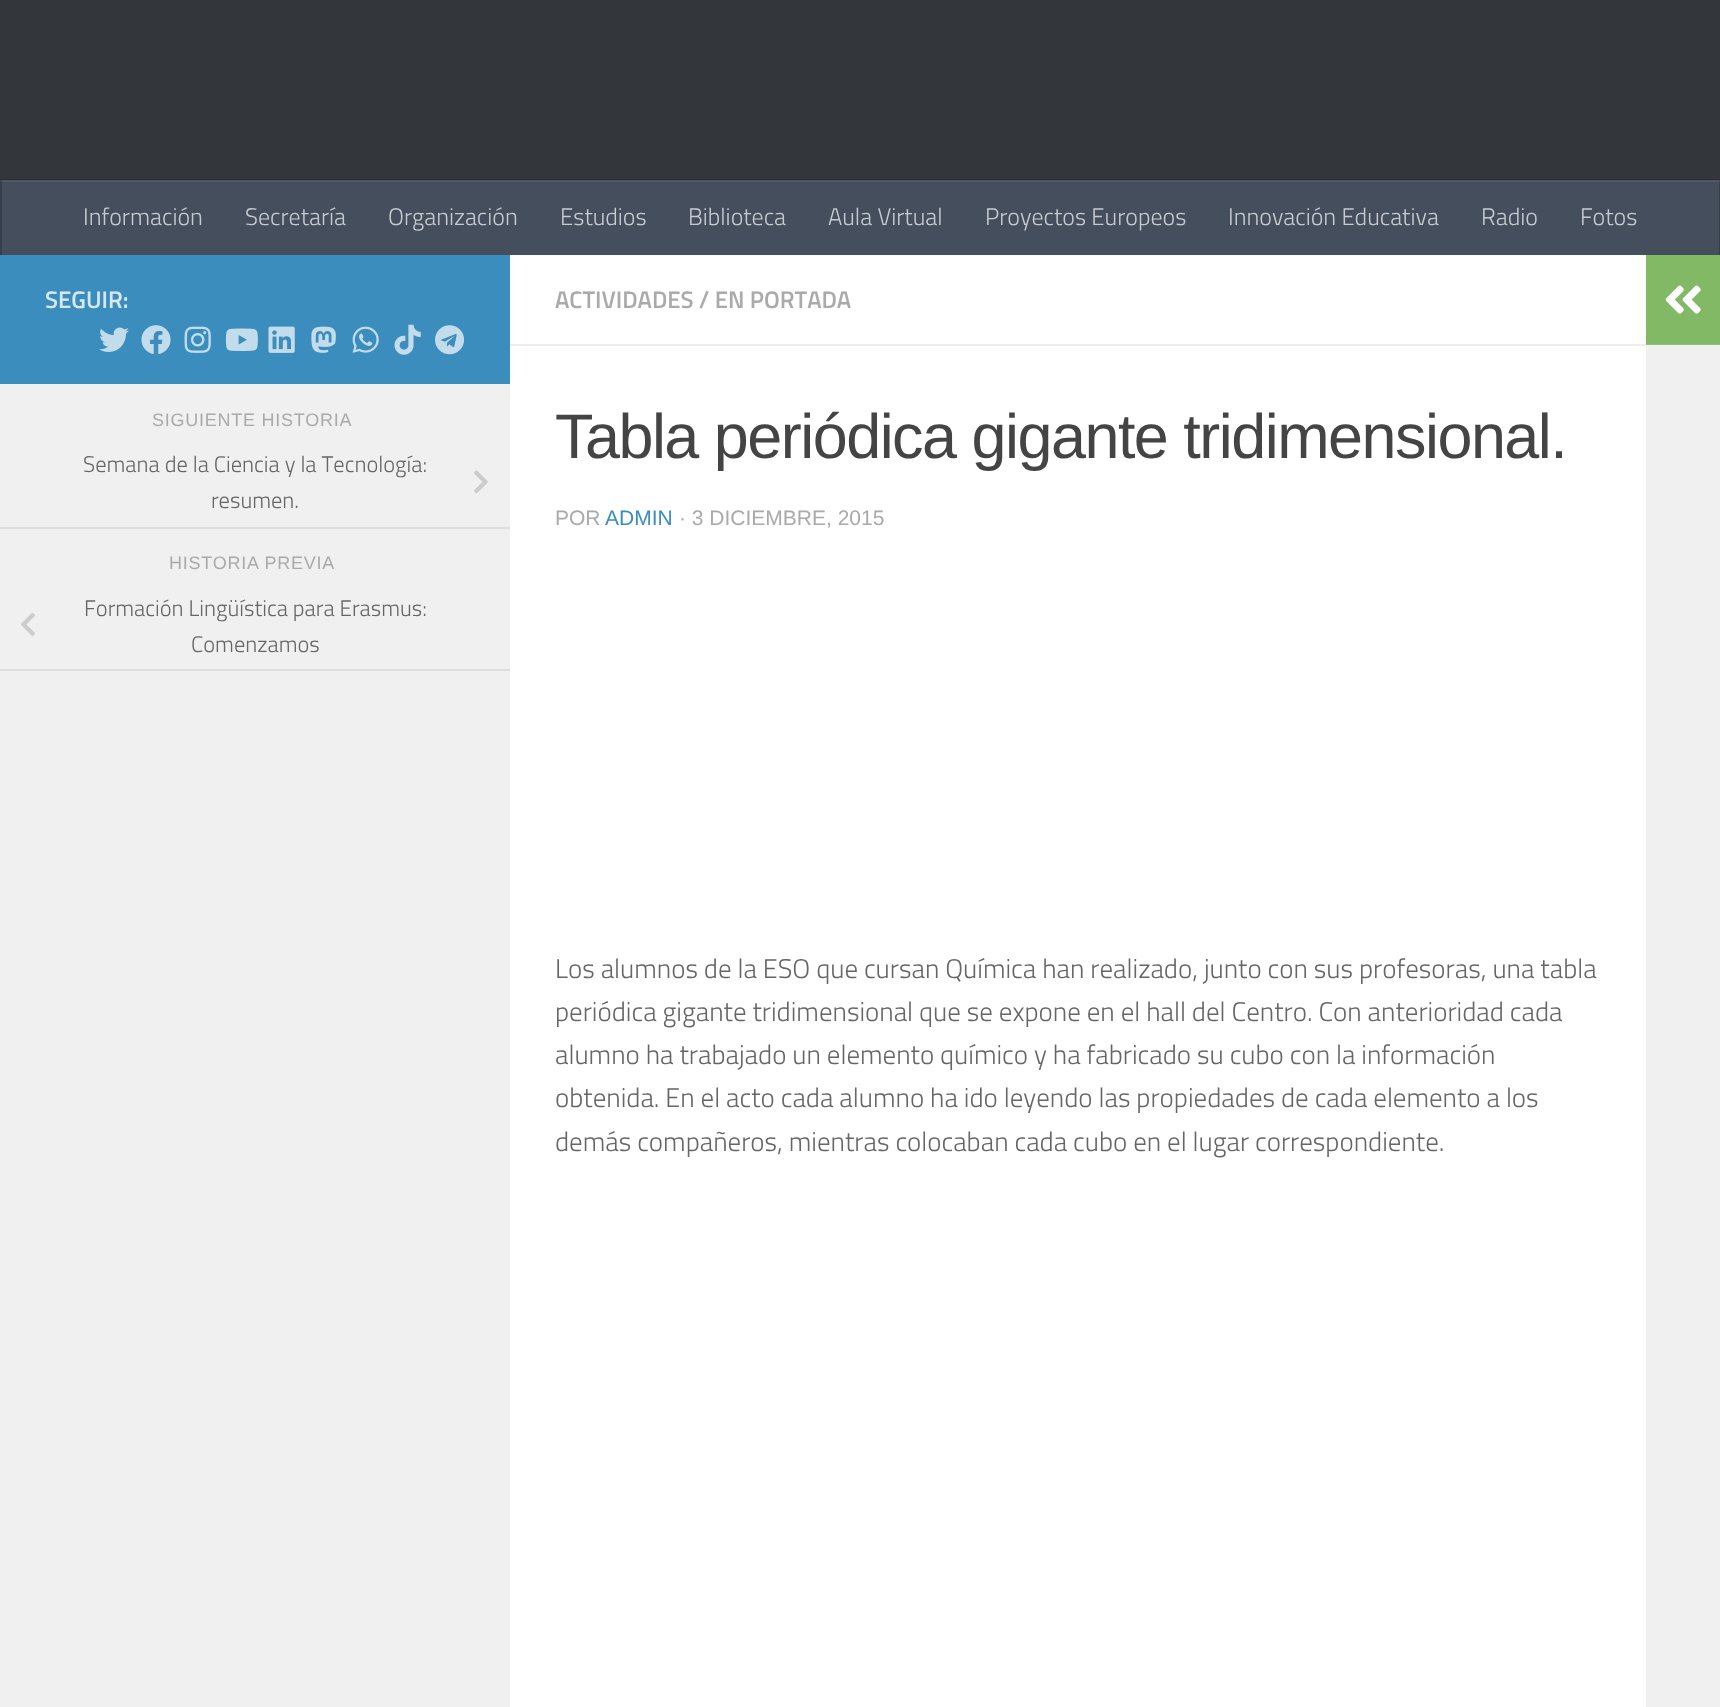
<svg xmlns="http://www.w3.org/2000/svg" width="1720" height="1707">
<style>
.a{font:300 24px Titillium;fill:#c7cace}
.b{font:600 24px Titillium;fill:#d8e8f2}
.c{font:18px Liberation Sans;letter-spacing:0.75px;fill:#aaa}
.d{font:300 22.5px Titillium;fill:#666}
.e{font:600 24px Titillium;fill:#aaa}
.f{font:62.9px Liberation Sans;letter-spacing:-1.5px;fill:#444}
.g{font:21px Liberation Sans;fill:#aaa}
.h{font:21px Liberation Sans;fill:#3b8dbd}
.i{font:300 27px Titillium;fill:#666}
</style>
<rect width="100%" height="100%" fill="#33363b"/>
<path fill="#292b2f" d="M0 179v1h1720v74h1v-75z"/>
<path fill="#454e5c" d="M2 182h1717v73H2z"/>
<path fill="#4e5764" d="M0 180h1720v2H0z"/>
<path fill="#373e4a" d="M1719 180h1v75H1719z"/>
<path fill="#414853" d="M1719 180h1v2H1719z"/>
<path fill="#373e4a" d="M0 180h2v75H0z"/>
<path fill="#414853" d="M0 180h2v2H0z"/>
<path fill="#fff" d="M510 255h1136v1452H510z"/>
<path fill="#3b8dbd" d="M0 255h510v129H0z"/>
<image href="1.png" x="99" y="327" width="30" height="25"/>
<image href="2.png" x="141" y="325" width="30" height="29"/>
<image href="3.png" x="184" y="326" width="27" height="27"/>
<image href="4.png" x="225" y="328" width="33" height="23"/>
<image href="5.png" x="268" y="326" width="27" height="27"/>
<image href="6.png" x="311" y="326" width="25" height="27"/>
<image href="7.png" x="352" y="326" width="27" height="27"/>
<image href="8.png" x="394" y="324" width="27" height="31"/>
<image href="9.png" x="435" y="325" width="30" height="30"/>
<path fill="#f0f0f0" d="M0 384h510v1323H0z"/>
<path fill="#ddd" d="M0 527h510v2H0z"/>
<image href="10.png" x="474" y="470" width="14" height="24"/>
<path fill="#ddd" d="M0 669h510v2H0z"/>
<image href="11.png" x="21" y="613" width="14" height="23"/>
<path fill="#eee" d="M510 344h1136v2H510z"/>
<path fill="#82b965" d="M1646 255h74v89H1646z"/>
<path fill="#8fc074" d="M1646 344h74v1H1646z"/>
<image href="12.png" x="1665" y="285" width="36" height="29"/>
<path fill="#f0f0f0" d="M1646 346h74v1361H1646z"/>
<path fill="#f2f2f2" d="M1646 345h74v1H1646z"/>
<text class="a" x="83" y="225">Información</text>
<text class="a" x="245" y="225">Secretaría</text>
<text class="a" x="388" y="225">Organización</text>
<text class="a" x="560" y="225">Estudios</text>
<text class="a" x="688" y="225">Biblioteca</text>
<text class="a" x="828" y="225">Aula Virtual</text>
<text class="a" x="985" y="225">Proyectos Europeos</text>
<text class="a" x="1228" y="225">Innovación Educativa</text>
<text class="a" x="1481" y="225">Radio</text>
<text class="a" x="1580" y="225">Fotos</text>
<text class="b" x="45" y="308">SEGUIR:</text>
<text class="c" x="152" y="426">SIGUIENTE HISTORIA</text>
<text class="d" x="83" y="472">Semana de la Ciencia y la Tecnología:</text>
<text class="d" x="211" y="508">resumen.</text>
<text class="c" x="169" y="569">HISTORIA PREVIA</text>
<text class="d" x="84" y="616">Formación Lingüística para Erasmus:</text>
<text class="d" x="191" y="652">Comenzamos</text>
<text class="e" x="555" y="308">ACTIVIDADES / EN PORTADA</text>
<text class="f" x="555" y="458">Tabla periódica gigante tridimensional.</text>
<text class="g" x="555" y="525">POR</text>
<text class="h" x="605" y="525">ADMIN</text>
<text class="g" x="679" y="525">· 3 DICIEMBRE, 2015</text>
<text class="i" x="555" y="978">Los alumnos de la ESO que cursan Química han realizado, junto con sus profesoras, una tabla</text>
<text class="i" x="555" y="1021">periódica gigante tridimensional que se expone en el hall del Centro. Con anterioridad cada</text>
<text class="i" x="555" y="1064">alumno ha trabajado un elemento químico y ha fabricado su cubo con la información</text>
<text class="i" x="555" y="1107">obtenida. En el acto cada alumno ha ido leyendo las propiedades de cada elemento a los</text>
<text class="i" x="555" y="1151">demás compañeros, mientras colocaban cada cubo en el lugar correspondiente.</text>
</svg>
